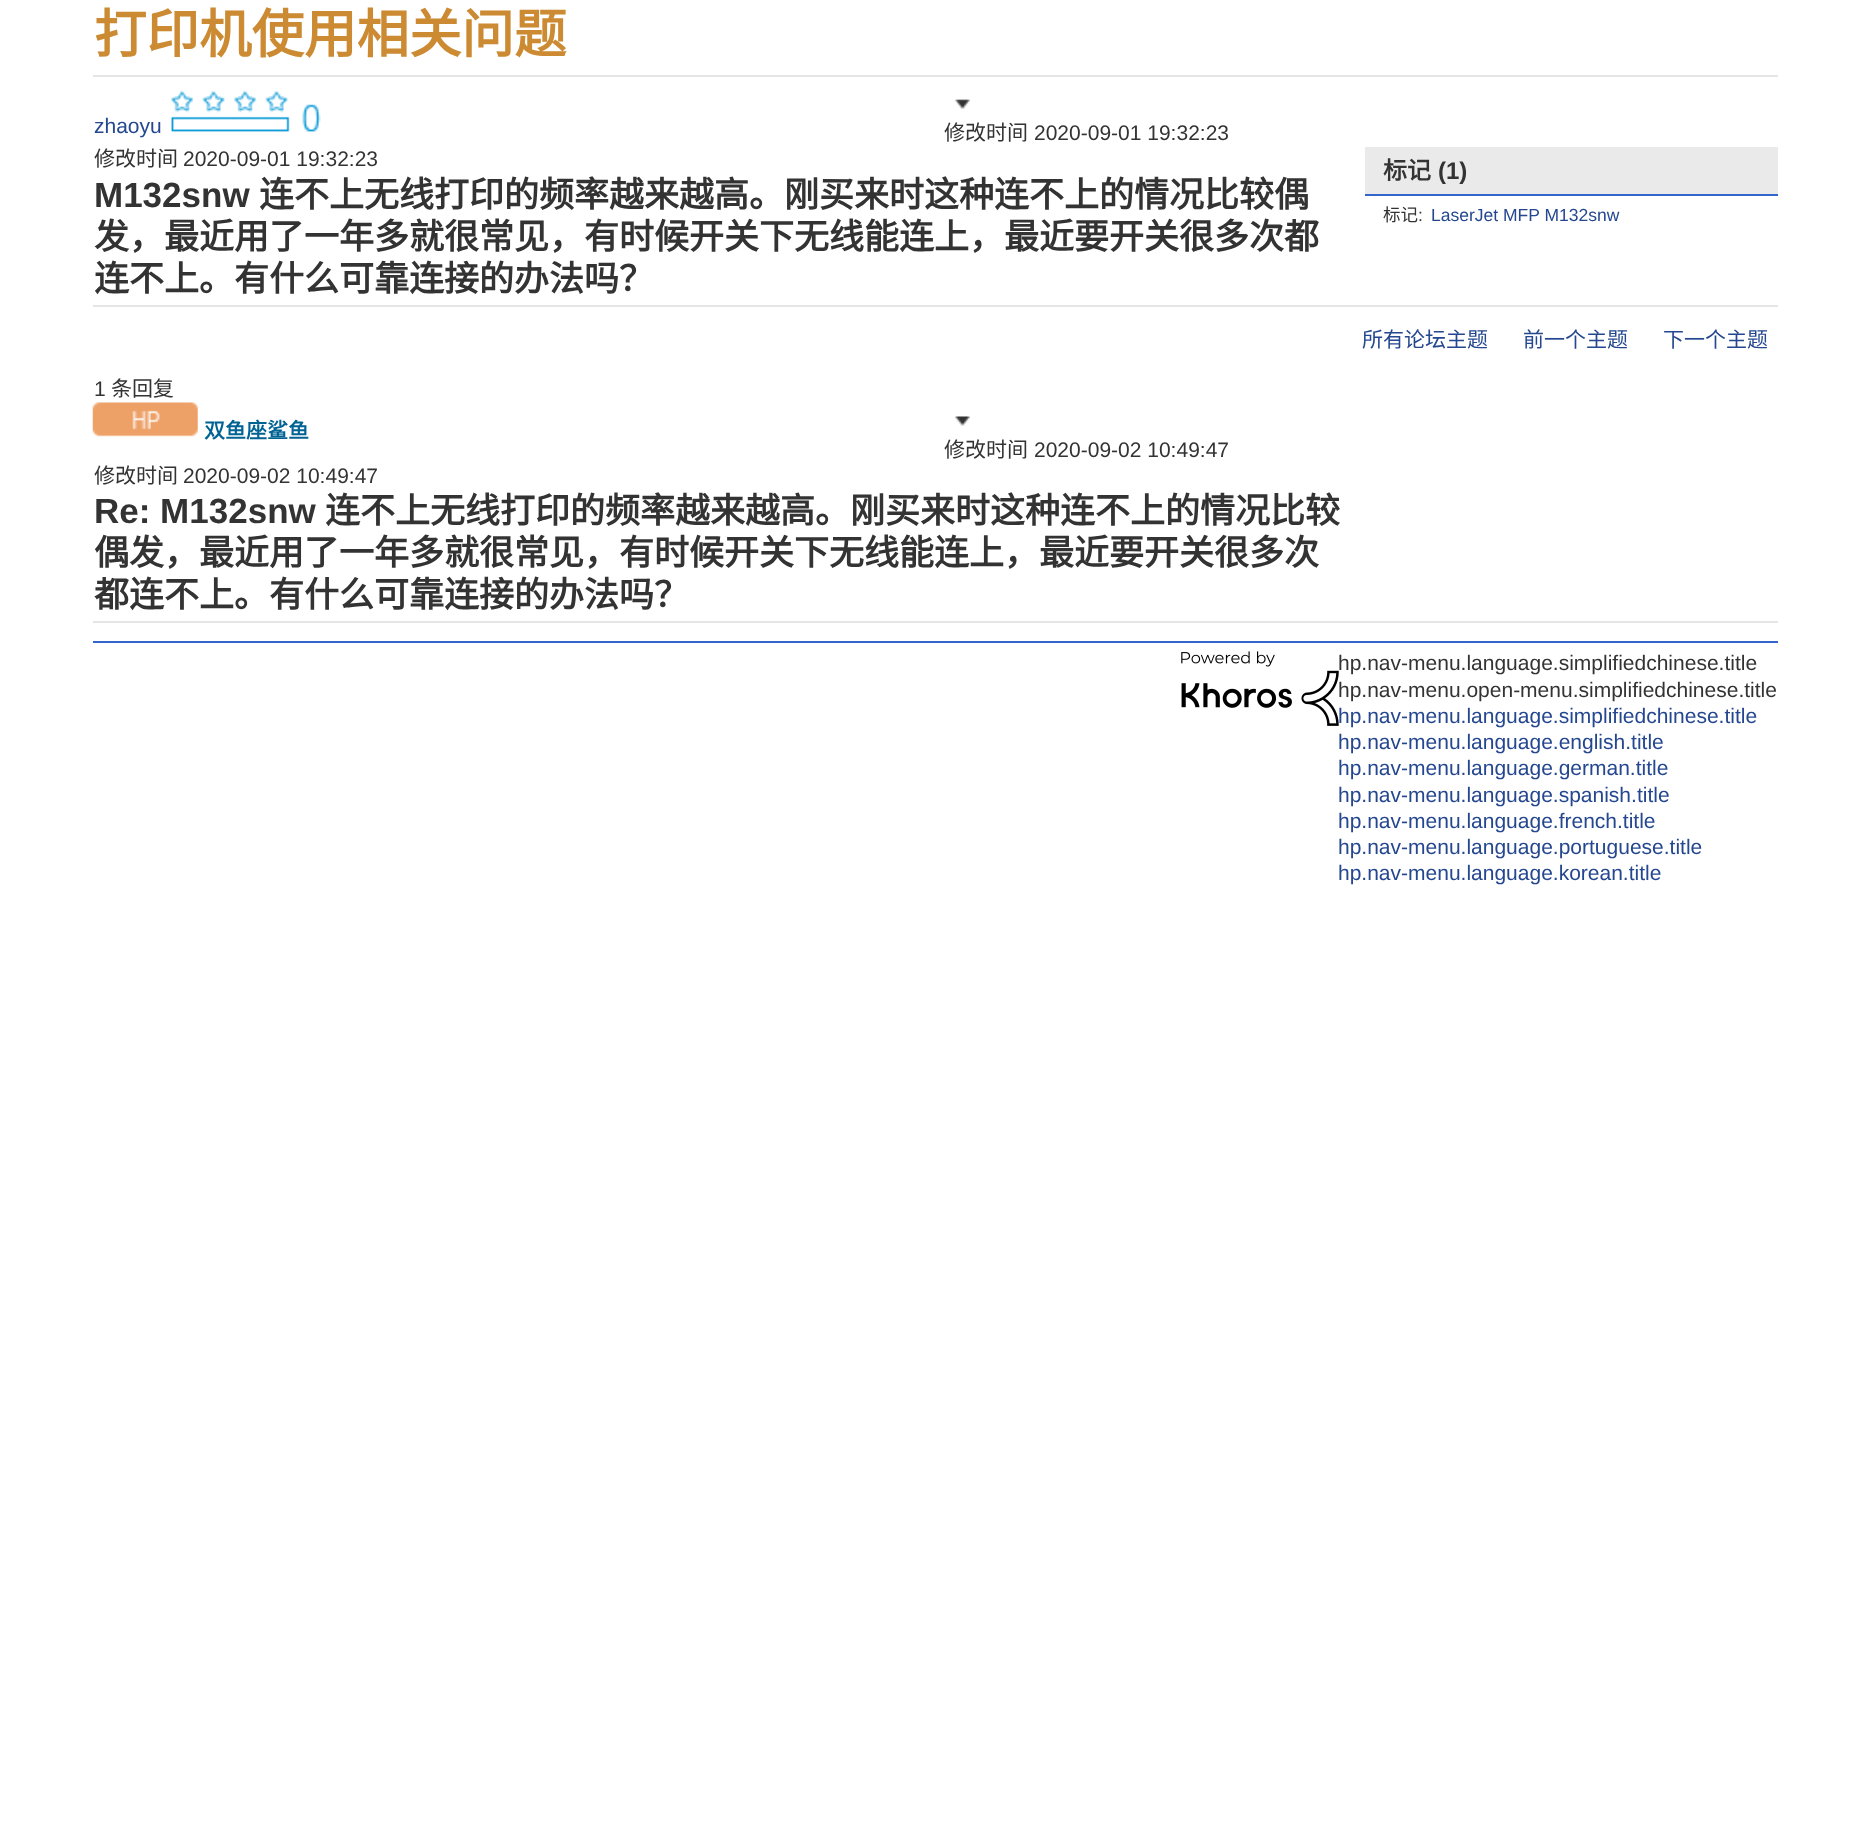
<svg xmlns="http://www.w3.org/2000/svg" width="1870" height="1823">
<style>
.a{font:bold 52.5px Noto Sans CJK SC;fill:#cc8b33}
.b{font:21px Liberation Sans;fill:#24478f}
.c{font:21px Noto Sans CJK SC;fill:#333}
.d{font:21px Liberation Sans;fill:#333}
.e{font:bold 35px Liberation Sans;fill:#333}
.f{font:bold 35px Noto Sans CJK SC;fill:#333}
.g{font:bold 24px Noto Sans CJK SC;fill:#333}
.h{font:bold 24px Liberation Sans;fill:#333}
.i{font:17.5px Noto Sans CJK SC;fill:#333}
.j{font:17.5px Liberation Sans;fill:#333}
.k{font:17.5px Liberation Sans;fill:#24478f}
.l{font:21px Noto Sans CJK SC;fill:#24478f}
.m{font:bold 21px Noto Sans CJK SC;fill:#006393}
</style>
<rect width="100%" height="100%" fill="#fff"/>
<path fill="#e5e5e5" d="M93 75h1685v2H93z"/>
<path fill="#e5e5e5" d="M93 305h1685v2H93z"/>
<image href="1.png" x="171" y="90" width="150" height="42"/>
<image href="2.png" x="955" y="99" width="15" height="10"/>
<path fill="#eaeaea" d="M1365 147h413v47H1365z"/>
<path fill="#36c" d="M1365 194h413v2H1365z"/>
<path fill="#e5e5e5" d="M93 621h1685v2H93z"/>
<image href="3.png" x="92" y="402" width="106" height="35"/>
<image href="4.png" x="955" y="416" width="15" height="10"/>
<path fill="#36c" d="M93 641h1685v2H93z"/>
<image href="5.png" x="1181" y="651" width="158" height="75"/>
<text class="a" x="94" y="53">打印机使用相关问题</text>
<text class="b" x="94" y="133">zhaoyu</text>
<text class="c" x="944" y="140">修改时间</text>
<text class="d" x="1034" y="140">2020-09-01 19:32:23</text>
<text class="c" x="94" y="166">修改时间</text>
<text class="d" x="183" y="166">2020-09-01 19:32:23</text>
<text class="e" x="94" y="207">M132snw</text>
<text class="f" x="259" y="207">连不上无线打印的频率越来越高。刚买来时这种连不上的情况比较偶</text>
<text class="f" x="94" y="249">发，最近用了一年多就很常见，有时候开关下无线能连上，最近要开关很多次都</text>
<text class="f" x="94" y="291">连不上。有什么可靠连接的办法吗？</text>
<text class="g" x="1383" y="179">标记</text>
<text class="h" x="1438" y="179">(1)</text>
<text class="i" x="1383" y="221">标记</text>
<text class="j" x="1418" y="221">:</text>
<text class="k" x="1431" y="221">LaserJet MFP M132snw</text>
<text class="l" x="1362" y="347">所有论坛主题</text>
<text class="l" x="1523" y="347">前一个主题</text>
<text class="l" x="1663" y="347">下一个主题</text>
<text class="d" x="94" y="396">1</text>
<text class="c" x="111" y="396">条回复</text>
<text class="m" x="204" y="438">双鱼座鲨鱼</text>
<text class="c" x="944" y="457">修改时间</text>
<text class="d" x="1034" y="457">2020-09-02 10:49:47</text>
<text class="c" x="94" y="483">修改时间</text>
<text class="d" x="183" y="483">2020-09-02 10:49:47</text>
<text class="e" x="94" y="523">Re: M132snw</text>
<text class="f" x="325" y="523">连不上无线打印的频率越来越高。刚买来时这种连不上的情况比较</text>
<text class="f" x="94" y="565">偶发，最近用了一年多就很常见，有时候开关下无线能连上，最近要开关很多次</text>
<text class="f" x="94" y="607">都连不上。有什么可靠连接的办法吗？</text>
<text class="d" x="1338" y="670">hp.nav-menu.language.simplifiedchinese.title</text>
<text class="d" x="1338" y="697">hp.nav-menu.open-menu.simplifiedchinese.title</text>
<text class="b" x="1338" y="723">hp.nav-menu.language.simplifiedchinese.title</text>
<text class="b" x="1338" y="749">hp.nav-menu.language.english.title</text>
<text class="b" x="1338" y="775">hp.nav-menu.language.german.title</text>
<text class="b" x="1338" y="802">hp.nav-menu.language.spanish.title</text>
<text class="b" x="1338" y="828">hp.nav-menu.language.french.title</text>
<text class="b" x="1338" y="854">hp.nav-menu.language.portuguese.title</text>
<text class="b" x="1338" y="880">hp.nav-menu.language.korean.title</text>
</svg>
